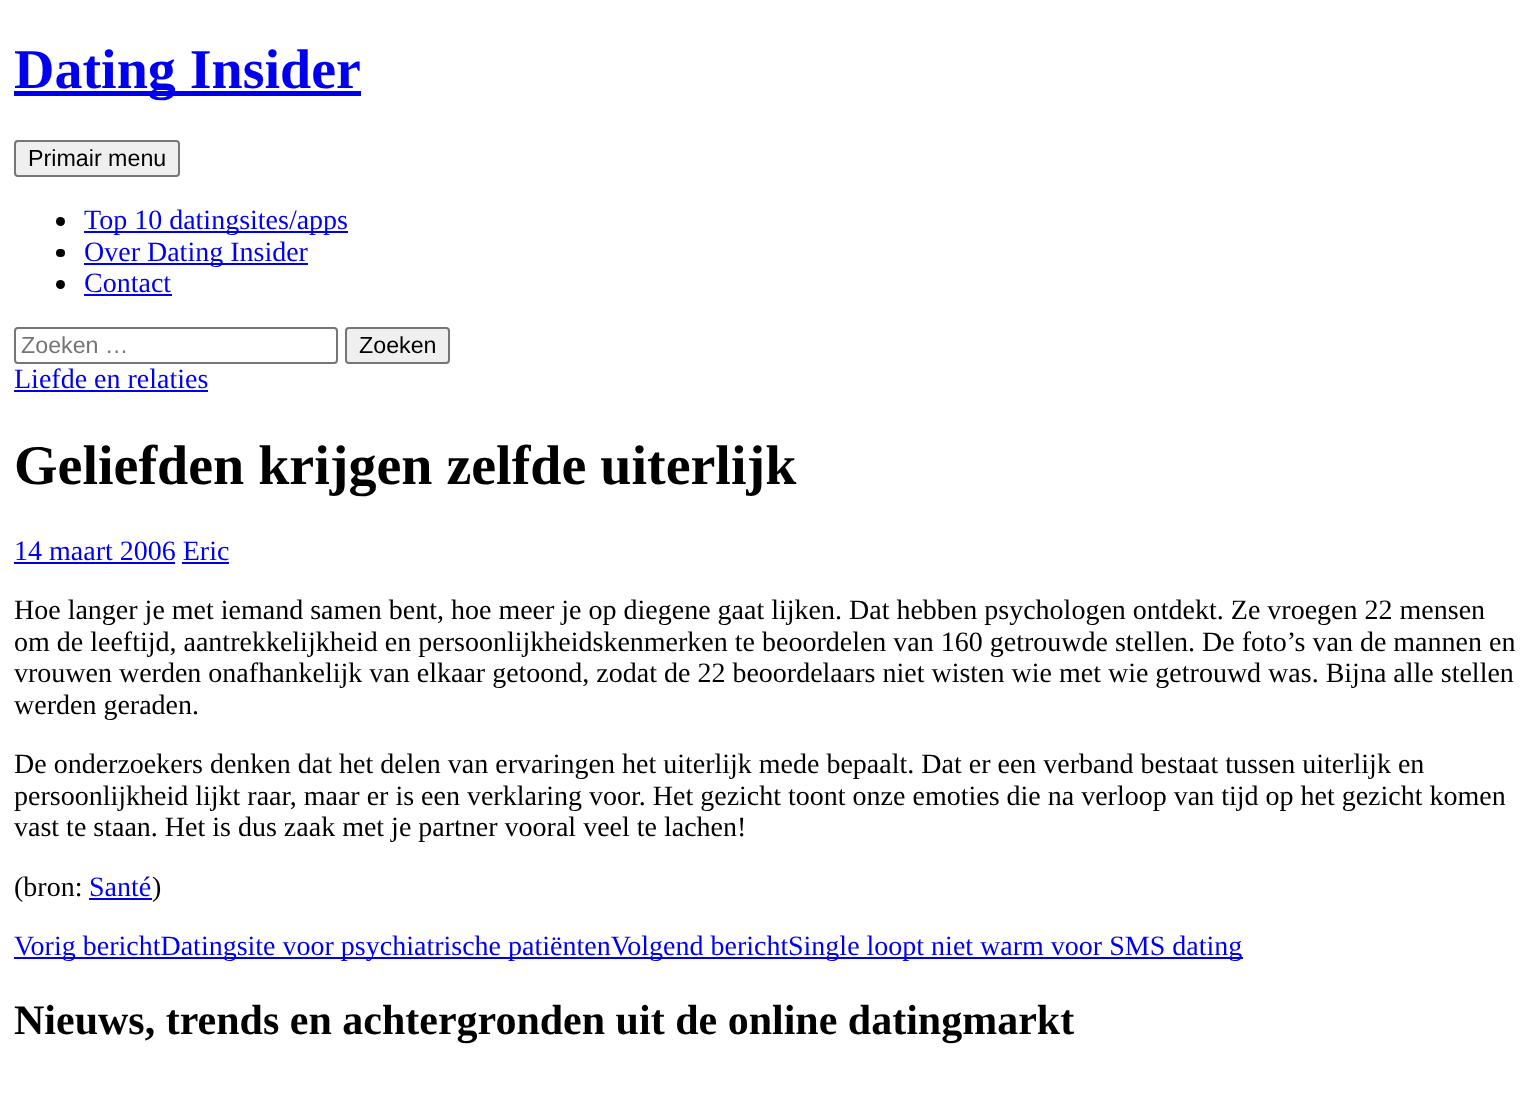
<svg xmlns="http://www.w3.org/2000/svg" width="1529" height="1102">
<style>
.a{font:bold 56px Liberation Serif;fill:#00e}
.b{font:23.25px Liberation Sans;fill:#000}
.c{font:28px Liberation Serif;fill:#00e}
.d{font:23.25px Liberation Sans;fill:#757575}
.e{font:bold 56px Liberation Serif;fill:#000}
.f{font:28px Liberation Serif;fill:#000}
.g{font:bold 42px Liberation Serif;fill:#000}
</style>
<rect width="100%" height="100%" fill="#fff"/>
<path fill="#00e" d="M14 91h347v5H14z"/>
<rect fill="#efefef" stroke="#767676" stroke-width="2" x="15" y="141" width="164" height="35" rx="3"/>
<circle fill="#000" cx="60.5" cy="221.5" r="4.5"/>
<path fill="#00e" d="M84 231h264v2H84z"/>
<rect fill="#000" x="56" y="249" width="9" height="8" rx="4"/>
<path fill="#00e" d="M84 263h224v2H84z"/>
<circle fill="#000" cx="60.5" cy="284.5" r="4.5"/>
<path fill="#00e" d="M84 294h88v2H84z"/>
<rect fill="none" stroke="#767676" stroke-width="2" x="15" y="328" width="322" height="35" rx="3"/>
<rect fill="#efefef" stroke="#767676" stroke-width="2" x="346" y="328" width="103" height="35" rx="3"/>
<path fill="#00e" d="M14 390h194v2H14z"/>
<path fill="#00e" d="M14 562h161v2H14z"/>
<path fill="#00e" d="M182 562h47v2H182z"/>
<path fill="#00e" d="M89 898h63v2H89z"/>
<path fill="#00e" d="M14 957h774v2H14z"/>
<path fill="#00e" d="M788 957h455v2H788z"/>
<text class="a" x="14" y="88">Dating Insider</text>
<text class="b" x="28" y="166">Primair menu</text>
<text class="c" x="84" y="229">Top 10 datingsites/apps</text>
<text class="c" x="84" y="261">Over Dating Insider</text>
<text class="c" x="84" y="292">Contact</text>
<text class="d" x="21" y="353">Zoeken …</text>
<text class="b" x="359" y="353">Zoeken</text>
<text class="c" x="14" y="388">Liefde en relaties</text>
<text class="e" x="14" y="484">Geliefden krijgen zelfde uiterlijk</text>
<text class="c" x="14" y="560">14 maart 2006 Eric</text>
<text class="f" x="14" y="619">Hoe langer je met iemand samen bent, hoe meer je op diegene gaat lijken. Dat hebben psychologen ontdekt. Ze vroegen 22 mensen</text>
<text class="f" x="14" y="651">om de leeftijd, aantrekkelijkheid en persoonlijkheidskenmerken te beoordelen van 160 getrouwde stellen. De foto’s van de mannen en</text>
<text class="f" x="14" y="682">vrouwen werden onafhankelijk van elkaar getoond, zodat de 22 beoordelaars niet wisten wie met wie getrouwd was. Bijna alle stellen</text>
<text class="f" x="14" y="714">werden geraden.</text>
<text class="f" x="14" y="773">De onderzoekers denken dat het delen van ervaringen het uiterlijk mede bepaalt. Dat er een verband bestaat tussen uiterlijk en</text>
<text class="f" x="14" y="805">persoonlijkheid lijkt raar, maar er is een verklaring voor. Het gezicht toont onze emoties die na verloop van tijd op het gezicht komen</text>
<text class="f" x="14" y="836">vast te staan. Het is dus zaak met je partner vooral veel te lachen!</text>
<text class="f" x="14" y="896">(bron:</text>
<text class="c" x="89" y="896">Santé</text>
<text class="f" x="152" y="896">)</text>
<text class="c" x="14" y="955">Vorig berichtDatingsite voor psychiatrische patiëntenVolgend bericht</text>
<text class="c" x="788" y="955">Single loopt niet warm voor SMS dating</text>
<text class="g" x="14" y="1034">Nieuws, trends en achtergronden uit de online datingmarkt</text>
</svg>
